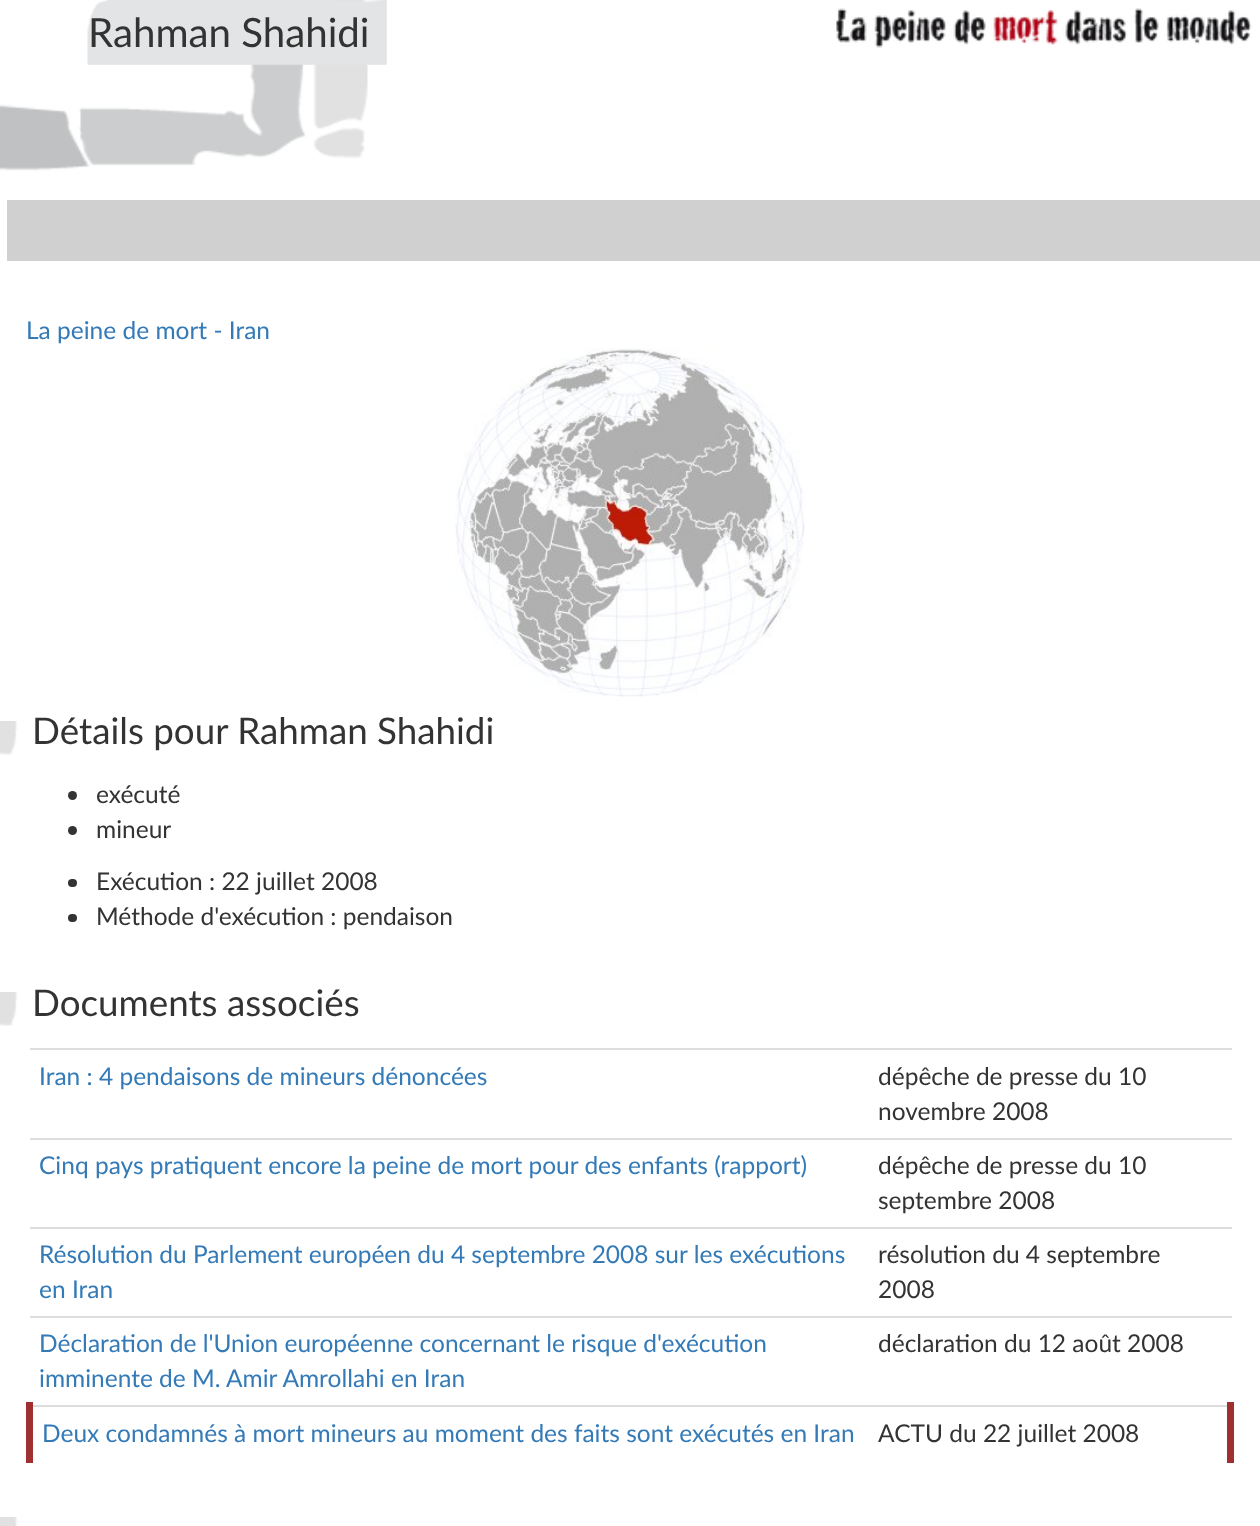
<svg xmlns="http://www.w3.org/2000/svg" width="1260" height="1526">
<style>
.a{font:40.25px Lato;fill:#333}
.b{font:24.5px Lato;fill:#337ab7}
.c{font:36.75px Lato;fill:#333}
.d{font:24.5px Lato;fill:#333}
</style>
<rect width="100%" height="100%" fill="#fff"/>
<image href="1.png" x="0" y="0" width="368" height="171"/>
<image href="2.png" x="836" y="8" width="416" height="40"/>
<image href="3.png" x="87" y="0" width="300" height="65"/>
<path fill="#d0d0d0" d="M7 200h1253v61H7z"/>
<image href="4.png" x="455" y="348" width="350" height="349"/>
<image href="5.png" x="0" y="721" width="18" height="34"/>
<circle fill="#333" cx="72.5" cy="795.5" r="4.5"/>
<circle fill="#333" cx="72.5" cy="830.5" r="4.5"/>
<rect fill="#333" x="68" y="879" width="9" height="8" rx="4"/>
<rect fill="#333" x="68" y="914" width="9" height="8" rx="4"/>
<image href="6.png" x="0" y="992" width="18" height="34"/>
<path fill="#ddd" d="M30 1048h1202v2H30z"/>
<path fill="#ddd" d="M30 1138h1202v2H30z"/>
<path fill="#ddd" d="M30 1227h1202v2H30z"/>
<path fill="#ddd" d="M30 1316h1202v2H30z"/>
<path fill="#ddd" d="M30 1405h1202v2H30z"/>
<path fill="#a03030" d="M26 1402h7v61H26z"/>
<path fill="#a03030" d="M1227 1402h7v61H1227z"/>
<image href="7.png" x="0" y="1517" width="18" height="9"/>
<text class="a" x="88" y="47">Rahman Shahidi</text>
<text class="b" x="26" y="339">La peine de mort - Iran</text>
<text class="c" x="32" y="744">Détails pour Rahman Shahidi</text>
<text class="d" x="96" y="803">exécuté</text>
<text class="d" x="96" y="838">mineur</text>
<text class="d" x="96" y="890">Exécution : 22 juillet 2008</text>
<text class="d" x="96" y="925">Méthode d'exécution : pendaison</text>
<text class="c" x="32" y="1016">Documents associés</text>
<text class="b" x="39" y="1085">Iran : 4 pendaisons de mineurs dénoncées</text>
<text class="d" x="878" y="1085">dépêche de presse du 10</text>
<text class="d" x="878" y="1120">novembre 2008</text>
<text class="b" x="39" y="1174">Cinq pays pratiquent encore la peine de mort pour des enfants (rapport)</text>
<text class="d" x="878" y="1174">dépêche de presse du 10</text>
<text class="d" x="878" y="1209">septembre 2008</text>
<text class="b" x="39" y="1263">Résolution du Parlement européen du 4 septembre 2008 sur les exécutions</text>
<text class="b" x="39" y="1298">en Iran</text>
<text class="d" x="878" y="1263">résolution du 4 septembre</text>
<text class="d" x="878" y="1298">2008</text>
<text class="b" x="39" y="1352">Déclaration de l'Union européenne concernant le risque d'exécution</text>
<text class="b" x="39" y="1387">imminente de M. Amir Amrollahi en Iran</text>
<text class="d" x="878" y="1352">déclaration du 12 août 2008</text>
<text class="b" x="42" y="1442">Deux condamnés à mort mineurs au moment des faits sont exécutés en Iran</text>
<text class="d" x="878" y="1442">ACTU du 22 juillet 2008</text>
</svg>
